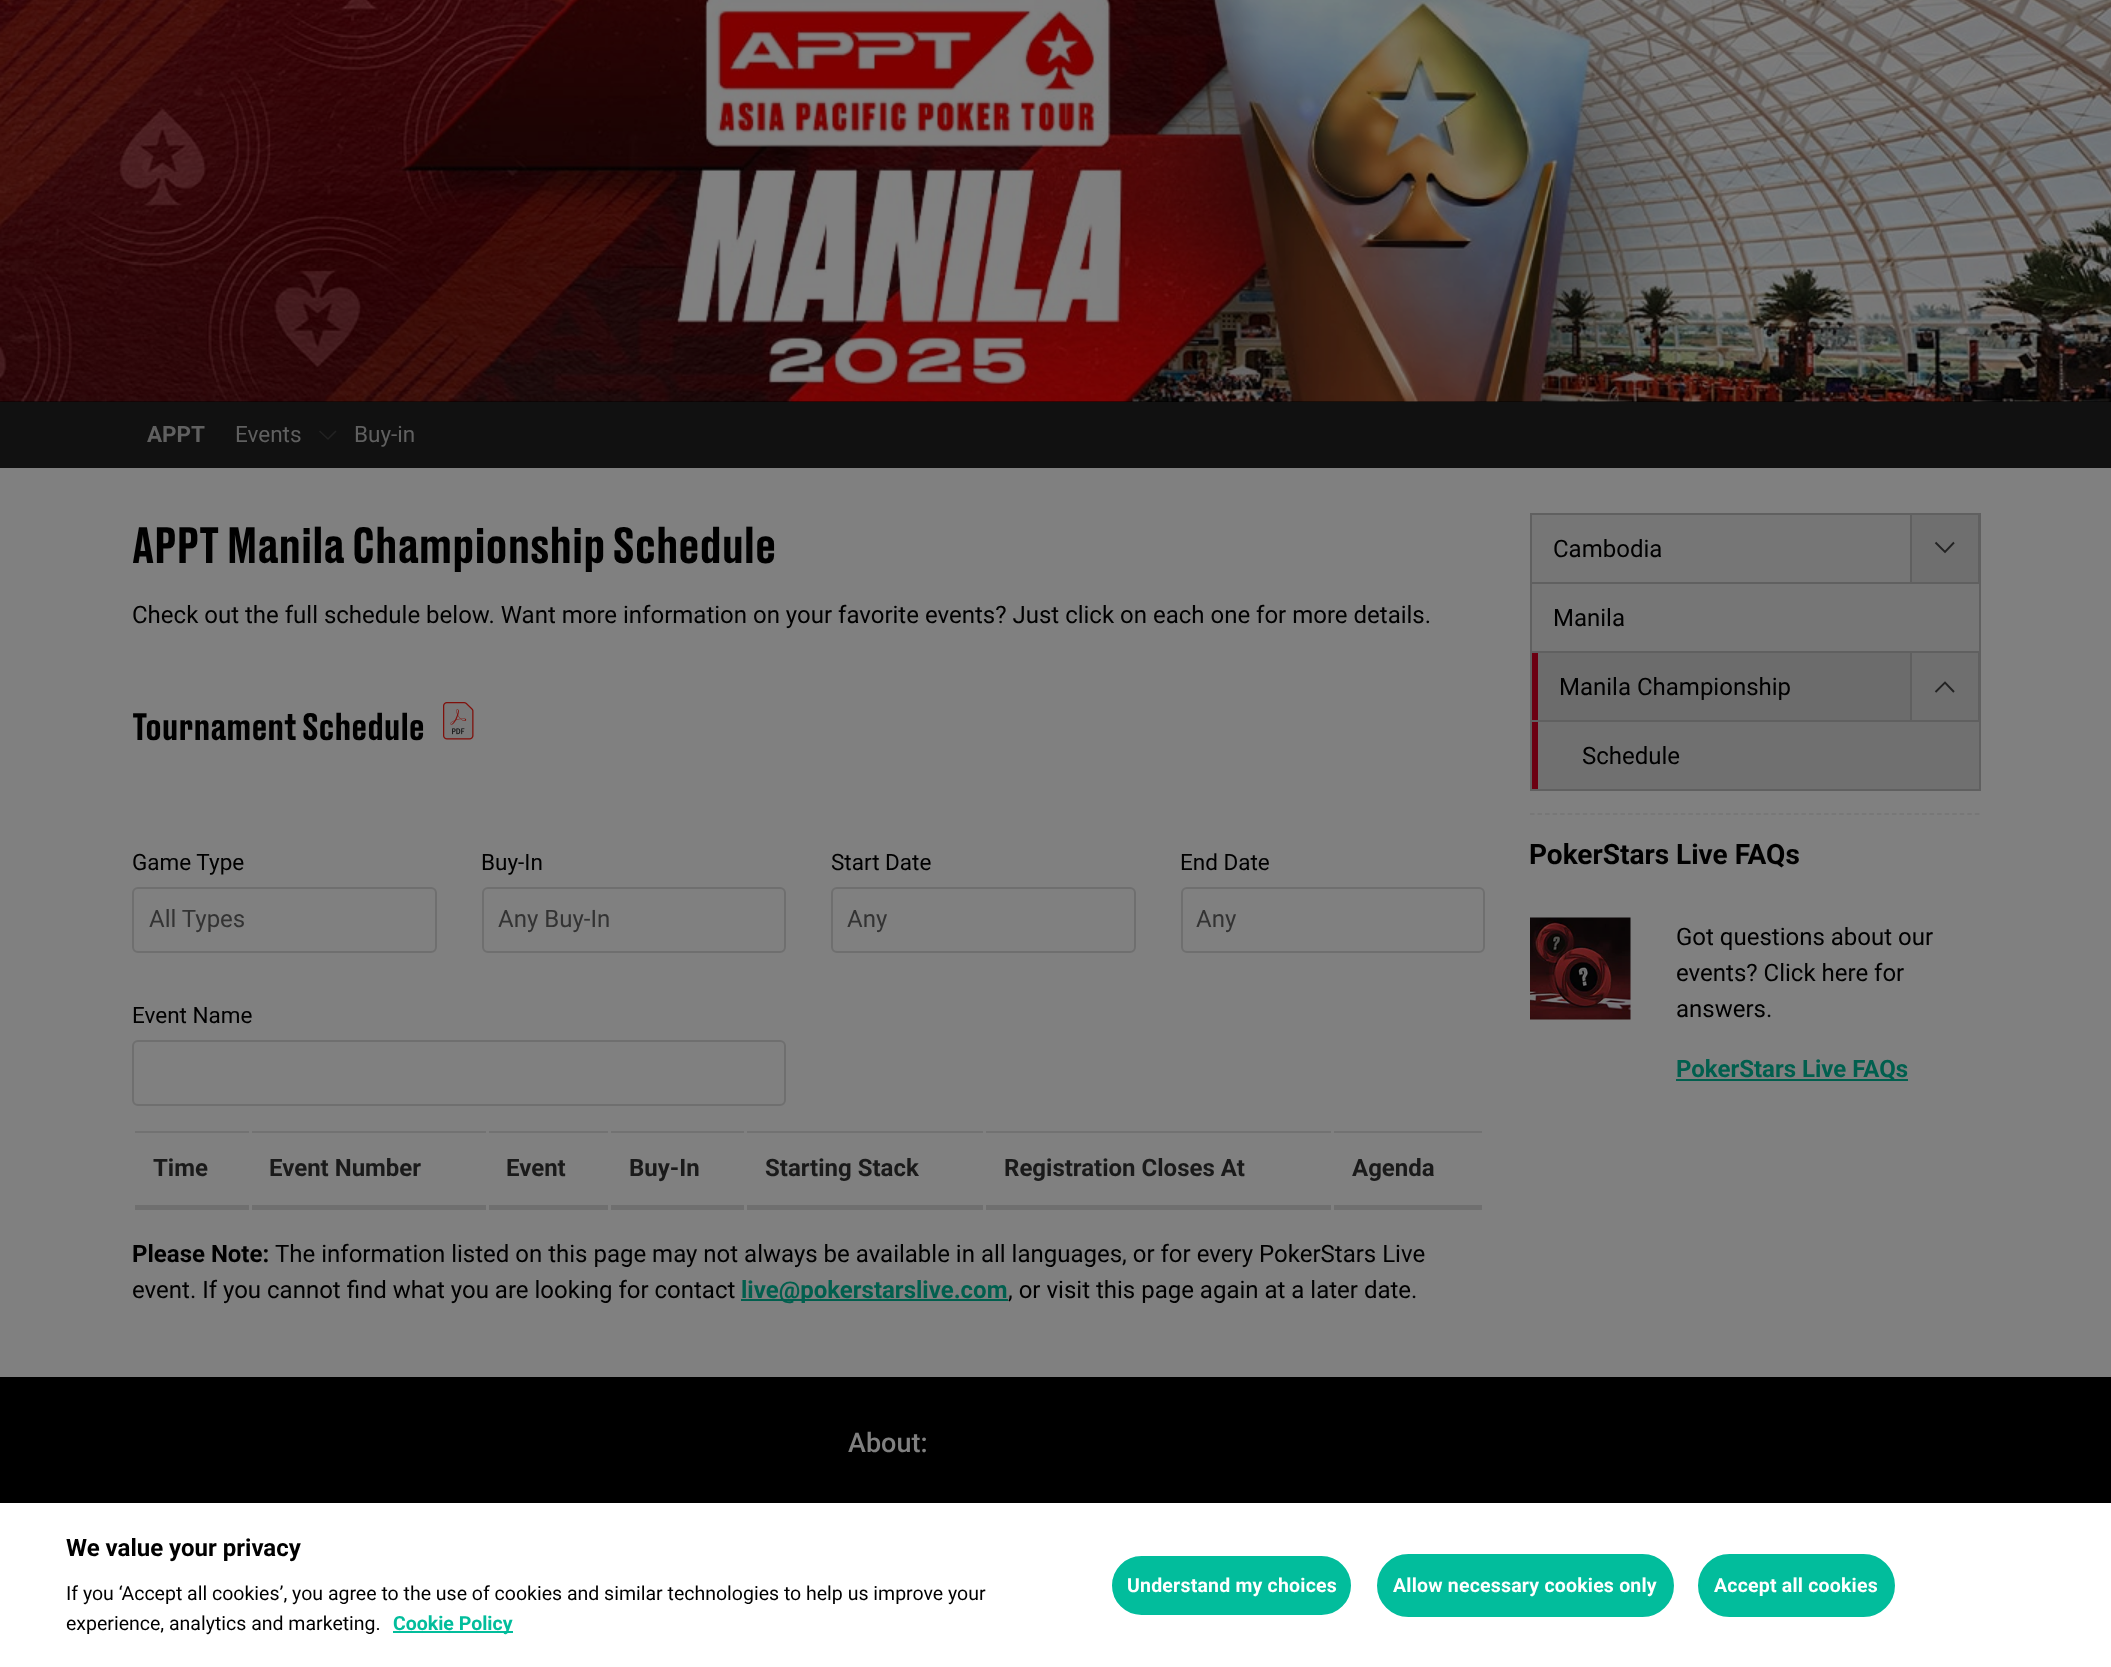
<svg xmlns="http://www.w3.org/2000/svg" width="2111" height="1667">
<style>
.a{font:bold 22.5px Roboto;fill:#606060}
.b{font:22.5px Roboto;fill:#606060}
.c{font:500 48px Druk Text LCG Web;fill:#000}
.d{font:24px Roboto;fill:#000}
.e{font:500 36px Druk Text LCG Web;fill:#000}
.f{font:22.5px Roboto;fill:#000}
.g{font:24px Roboto;fill:#333}
.h{font:bold 24px Roboto;fill:#1a1a1a}
.i{font:bold 24px Roboto;fill:#000}
.j{font:bold 24px Roboto;fill:#015f4e}
.k{font:bold 28px Roboto;fill:#000}
.l{font:500 27px Roboto;fill:#808080}
.m{font:19.5px Roboto;fill:#000}
.n{font:bold 19.5px Roboto;fill:#02bd9c}
.o{font:bold 19.5px Roboto;letter-spacing:0.2px;fill:#fff}
</style>
<rect width="100%" height="100%" fill="#000"/>
<path fill="#808080" d="M0 468h2111v909H0z"/>
<image href="1.png" x="0" y="0" width="2111" height="402"/>
<path fill="#111" d="M0 402h2111v66H0z"/>
<path fill="none" stroke="#222" stroke-width="1.6" d="M336 431l-8 8l-8.5-8"/>
<image href="2.png" x="443" y="702" width="31" height="38"/>
<rect fill="none" stroke="#6f6f6f" stroke-width="2" x="133" y="888" width="303" height="64" rx="5"/>
<rect fill="none" stroke="#6f6f6f" stroke-width="2" x="483" y="888" width="302" height="64" rx="5"/>
<rect fill="none" stroke="#6f6f6f" stroke-width="2" x="832" y="888" width="303" height="64" rx="5"/>
<rect fill="none" stroke="#6f6f6f" stroke-width="2" x="1182" y="888" width="302" height="64" rx="5"/>
<rect fill="none" stroke="#6f6f6f" stroke-width="2" x="133" y="1041" width="652" height="64" rx="5"/>
<path fill="#727272" d="M135 1131h114v2H135z"/>
<path fill="#6f6f6f" d="M135 1205h114v5H135z"/>
<path fill="#727272" d="M252 1131h234v2H252z"/>
<path fill="#6f6f6f" d="M252 1205h234v5H252z"/>
<path fill="#727272" d="M489 1131h119v2H489z"/>
<path fill="#6f6f6f" d="M489 1205h119v5H489z"/>
<path fill="#727272" d="M611 1131h133v2H611z"/>
<path fill="#6f6f6f" d="M611 1205h133v5H611z"/>
<path fill="#727272" d="M747 1131h236v2H747z"/>
<path fill="#6f6f6f" d="M747 1205h236v5H747z"/>
<path fill="#727272" d="M986 1131h345v2H986z"/>
<path fill="#6f6f6f" d="M986 1205h345v5H986z"/>
<path fill="#727272" d="M1334 1131h148v2H1334z"/>
<path fill="#6f6f6f" d="M1334 1205h148v5H1334z"/>
<path fill="#015f4e" d="M741 1299h267v2H741z"/>
<path fill="#606060" d="M1530 513h380v2H1530z"/>
<path fill="#606060" d="M1979 513h2v278H1979z"/>
<path fill="#606060" d="M1530 513h2v278H1530z"/>
<path fill="#606060" d="M1532 582h378v2H1532z"/>
<path fill="#767676" d="M1532 515h378v67H1532z"/>
<path fill="#6f6f6f" stroke="#606060" stroke-width="2" d="M1911 514h68v69H1911z"/>
<path fill="none" stroke="#222" stroke-width="1.9" d="M1954 542.5l-9 9.5l-9.5-9.5"/>
<path fill="#606060" d="M1532 651h378v2H1532z"/>
<path fill="#767676" d="M1532 584h447v67H1532z"/>
<path fill="#606060" d="M1532 789h447v2H1532z"/>
<path fill="#6c6c6c" d="M1538 653h372v67H1538z"/>
<path fill="#6c0011" d="M1532 653h6v67H1532z"/>
<path fill="#6f6f6f" stroke="#606060" stroke-width="2" d="M1911 652h68v69H1911z"/>
<path fill="none" stroke="#222" stroke-width="1.9" d="M1935.5 692l9.5-9.5l9 9.5"/>
<path fill="#606060" d="M1532 720h378v2H1532z"/>
<path fill="#707070" d="M1538 722h441v67H1538z"/>
<path fill="#6c0011" d="M1532 722h6v67H1532z"/>
<path fill="none" stroke="#747474" stroke-width="1.5" stroke-dasharray="4.5 3.04" d="M1530 814h450"/>
<image href="3.png" x="1530" y="917" width="101" height="103"/>
<path fill="#015f4e" d="M1676 1079h232v2H1676z"/>
<path fill="#fff" d="M0 1503h2111v164H0z"/>
<path fill="#02bd9c" d="M393 1631h120v2H393z"/>
<rect fill="#02bd9c" stroke="#fff" stroke-width="2" x="1111" y="1555" width="241" height="61" rx="30.5"/>
<rect fill="#02bd9c" stroke="#02bd9c" stroke-width="2" x="1378" y="1555" width="295" height="61" rx="30.5"/>
<rect fill="#02bd9c" stroke="#02bd9c" stroke-width="2" x="1699" y="1555" width="195" height="61" rx="30.5"/>
<text class="a" x="147" y="442">APPT</text>
<text class="b" x="235" y="442">Events</text>
<text class="b" x="354" y="442">Buy-in</text>
<text class="c" x="132" y="563">APPT Manila Championship Schedule</text>
<text class="d" x="132" y="623">Check out the full schedule below. Want more information on your favorite events? Just click on each one for more details.</text>
<text class="e" x="132" y="740">Tournament Schedule</text>
<text class="f" x="132" y="870">Game Type</text>
<text class="g" x="149" y="927">All Types</text>
<text class="f" x="481" y="870">Buy-In</text>
<text class="g" x="498" y="927">Any Buy-In</text>
<text class="f" x="831" y="870">Start Date</text>
<text class="g" x="847" y="927">Any</text>
<text class="f" x="1180" y="870">End Date</text>
<text class="g" x="1196" y="927">Any</text>
<text class="f" x="132" y="1023">Event Name</text>
<text class="h" x="153" y="1176">Time</text>
<text class="h" x="269" y="1176">Event Number</text>
<text class="h" x="506" y="1176">Event</text>
<text class="h" x="629" y="1176">Buy-In</text>
<text class="h" x="765" y="1176">Starting Stack</text>
<text class="h" x="1004" y="1176">Registration Closes At</text>
<text class="h" x="1352" y="1176">Agenda</text>
<text class="i" x="132" y="1262">Please Note:</text>
<text class="d" x="275" y="1262">The information listed on this page may not always be available in all languages, or for every PokerStars Live</text>
<text class="d" x="132" y="1298">event. If you cannot find what you are looking for contact</text>
<text class="j" x="741" y="1298">live@pokerstarslive.com</text>
<text class="d" x="1008" y="1298">, or visit this page again at a later date.</text>
<text class="d" x="1553" y="557">Cambodia</text>
<text class="d" x="1553" y="626">Manila</text>
<text class="d" x="1559" y="695">Manila Championship</text>
<text class="d" x="1582" y="764">Schedule</text>
<text class="k" x="1529" y="864">PokerStars Live FAQs</text>
<text class="d" x="1676" y="945">Got questions about our</text>
<text class="d" x="1676" y="981">events? Click here for</text>
<text class="d" x="1676" y="1017">answers.</text>
<text class="j" x="1676" y="1077">PokerStars Live FAQs</text>
<text class="l" x="848" y="1452">About:</text>
<text class="i" x="66" y="1556">We value your privacy</text>
<text class="m" x="66" y="1600">If you ‘Accept all cookies’, you agree to the use of cookies and similar technologies to help us improve your</text>
<text class="m" x="66" y="1630">experience, analytics and marketing.</text>
<text class="n" x="393" y="1630">Cookie Policy</text>
<text class="o" x="1127" y="1592">Understand my choices</text>
<text class="o" x="1393" y="1592">Allow necessary cookies only</text>
<text class="o" x="1714" y="1592">Accept all cookies</text>
</svg>
